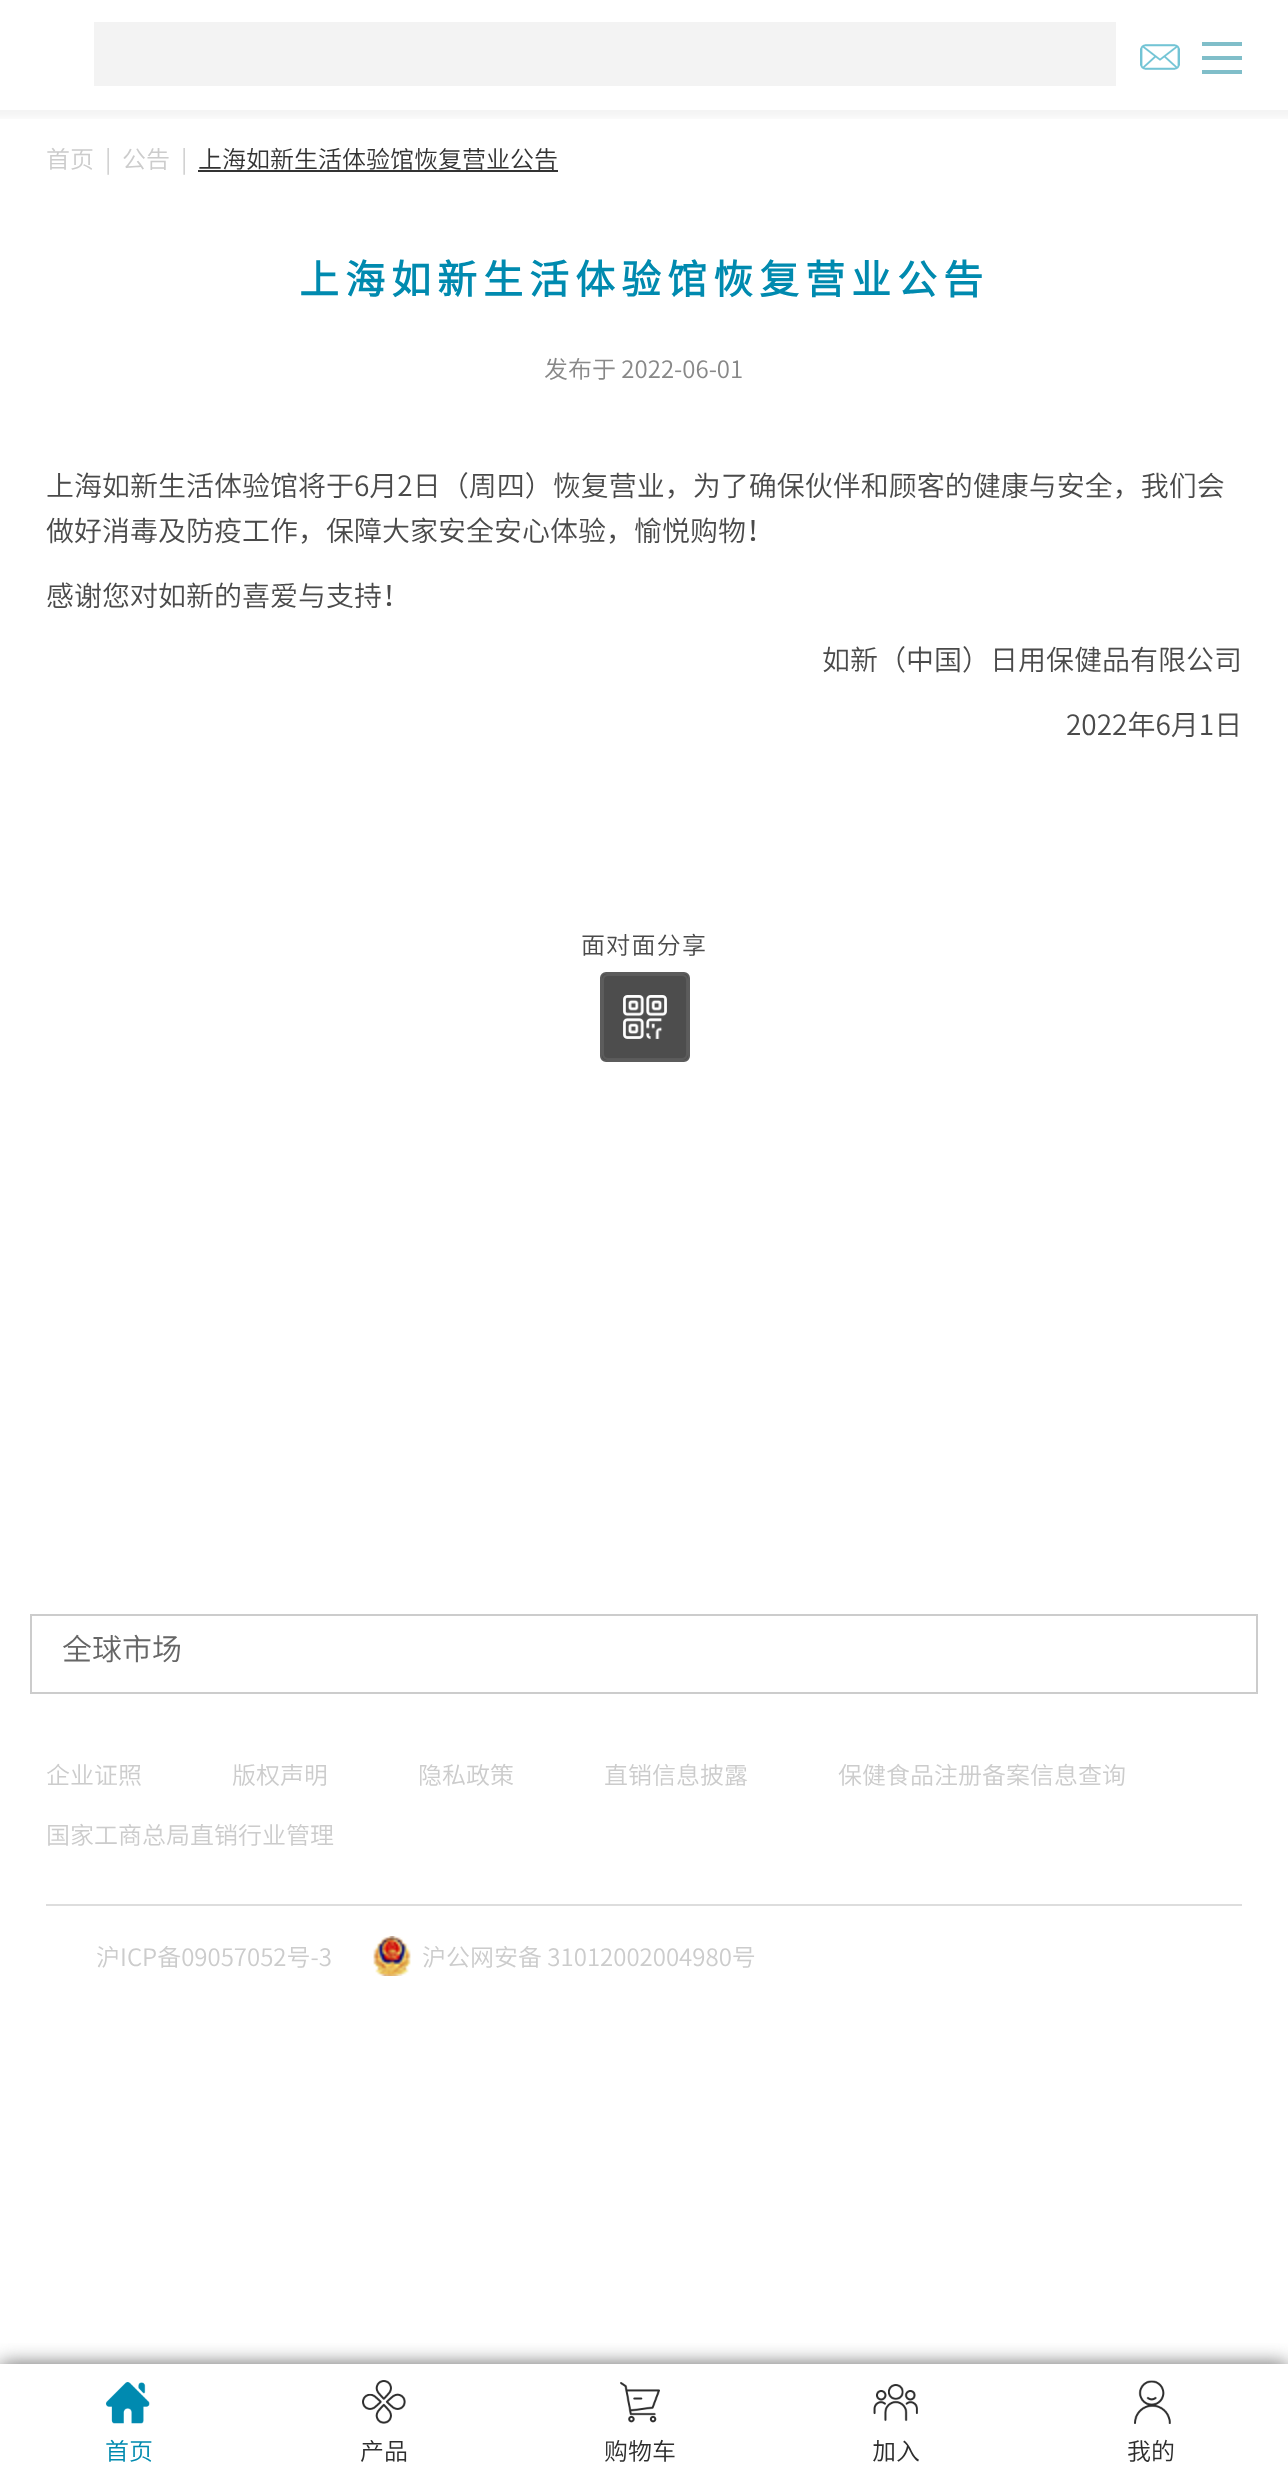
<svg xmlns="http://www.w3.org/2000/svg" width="1288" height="2487">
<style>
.a{font:300 24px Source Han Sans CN;fill:#ccc}
.b{font:300 24px Source Han Sans CN;fill:#333}
.c{font:bold 40px Source Han Sans CN;letter-spacing:6px;fill:#008aaf}
.d{font:300 24px Source Han Sans CN;fill:#888}
.e{font:300 28px Source Han Sans CN;fill:#4a4a4a}
.f{font:300 24px Source Han Sans CN;letter-spacing:1.25px;fill:#4a4a4a}
.g{font:300 30px Source Han Sans CN;fill:#666}
.h{font:300 24px Source Han Sans CN;fill:#008aaf}
.i{font:300 24px Source Han Sans CN;fill:#2d2d2d}
</style>
<defs>
<clipPath id="clip1"><path d="M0 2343h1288v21H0z"/></clipPath>
</defs>
<rect width="100%" height="100%" fill="#fff"/>
<image href="1.png" x="0" y="110" width="1288" height="9"/>
<path fill="#333" d="M198 170h360v2H198z"/>
<rect fill="#4d4d4d" stroke="#5c5c5c" stroke-width="2" x="601" y="973" width="88" height="88" rx="5"/>
<image href="2.png" x="602" y="974" width="86" height="86"/>
<path fill="none" stroke="#ccc" stroke-width="2" d="M31 1615h1226v78H31z"/>
<path fill="#ddd" d="M46 1904h1196v2H46z"/>
<image href="3.png" x="373" y="1936" width="38" height="40"/>
<path fill="#f3f3f3" d="M94 22h1022v64H94z"/>
<image href="4.png" x="1140" y="44" width="40" height="26"/>
<path fill="#80bec9" d="M1202 42h40v4H1202z"/>
<path fill="#80bec9" d="M1202 56h40v4H1202z"/>
<path fill="#80bec9" d="M1202 70h40v4H1202z"/>
<g clip-path="url(#clip1)">
<path fill="#666" filter="blur(10px)" d="M0 2364h1288v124H0z"/>
</g>
<image href="5.png" x="106" y="2382" width="44" height="42"/>
<image href="6.png" x="362" y="2380" width="44" height="44"/>
<image href="7.png" x="620" y="2382" width="40" height="41"/>
<image href="8.png" x="873" y="2384" width="45" height="38"/>
<image href="9.png" x="1134" y="2380" width="37" height="44"/>
<text class="a" x="46" y="168">首页</text>
<text class="a" x="105" y="168">|</text>
<text class="a" x="122" y="168">公告</text>
<text class="a" x="181" y="168">|</text>
<text class="b" x="198" y="168">上海如新生活体验馆恢复营业公告</text>
<text class="c" x="299" y="294">上海如新生活体验馆恢复营业公告</text>
<text class="d" x="544" y="378">发布于 2022-06-01</text>
<text class="e" x="46" y="496">上海如新生活体验馆将于6月2日（周四）恢复营业，为了确保伙伴和顾客的健康与安全，我们会</text>
<text class="e" x="46" y="541">做好消毒及防疫工作，保障大家安全安心体验，愉悦购物！</text>
<text class="e" x="46" y="606">感谢您对如新的喜爱与支持！</text>
<text class="e" x="822" y="670">如新（中国）日用保健品有限公司</text>
<text class="e" x="1066" y="735">2022年6月1日</text>
<text class="f" x="581" y="954">面对面分享</text>
<text class="g" x="62" y="1660">全球市场</text>
<text class="a" x="46" y="1784">企业证照</text>
<text class="a" x="232" y="1784">版权声明</text>
<text class="a" x="418" y="1784">隐私政策</text>
<text class="a" x="604" y="1784">直销信息披露</text>
<text class="a" x="838" y="1784">保健食品注册备案信息查询</text>
<text class="a" x="46" y="1844">国家工商总局直销行业管理</text>
<text class="a" x="96" y="1966">沪ICP备09057052号-3</text>
<text class="a" x="422" y="1966">沪公网安备 31012002004980号</text>
<text class="h" x="105" y="2460">首页</text>
<text class="i" x="360" y="2460">产品</text>
<text class="i" x="604" y="2460">购物车</text>
<text class="i" x="872" y="2460">加入</text>
<text class="i" x="1127" y="2460">我的</text>
</svg>
